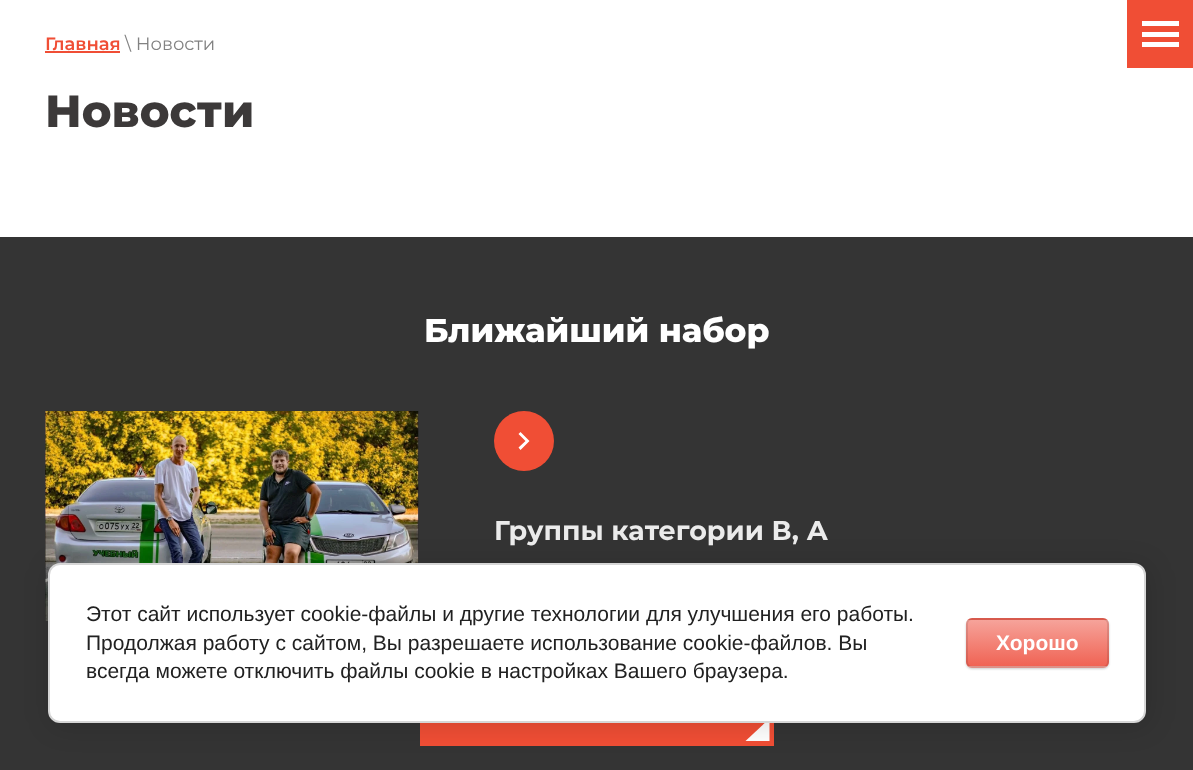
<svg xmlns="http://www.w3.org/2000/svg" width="1193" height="770">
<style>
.a{font:600 18px Montserrat;fill:#f04e35}
.b{font:18px Montserrat;fill:#828282}
.c{font:800 45px Montserrat;fill:#3c3939}
.d{font:800 33px Montserrat;fill:#fff}
.e{font:bold 27px Montserrat;fill:#ebebeb}
.f{font:21px Liberation Sans;fill:#212121}
.g{font:bold 21px Liberation Sans;fill:#fff}
</style>
<defs>
<clipPath id="clip1"><rect x="966" y="618" width="143" height="50" rx="6"/></clipPath>
<linearGradient id="g1" gradientUnits="userSpaceOnUse" x1="1037" y1="573" x2="1037" y2="620"><stop offset="0" stop-color="#f6a39a"/><stop offset="1" stop-color="#f06354"/></linearGradient>
<linearGradient id="g2" gradientUnits="userSpaceOnUse" x1="1037" y1="620" x2="1037" y2="666"><stop offset="0" stop-color="#f6a39a"/><stop offset="1" stop-color="#f06354"/></linearGradient>
<linearGradient id="g3" gradientUnits="userSpaceOnUse" x1="1037" y1="666" x2="1037" y2="713"><stop offset="0" stop-color="#f6a39a"/><stop offset="1" stop-color="#f06354"/></linearGradient>
</defs>
<rect width="100%" height="100%" fill="#fff"/>
<path fill="#f04e35" d="M45 51h75v2H45z"/>
<path fill="#f04e35" d="M1127 0h66v68H1127z"/>
<path fill="#fff" d="M1142 21h37v5H1142z"/>
<path fill="#fff" d="M1142 32h37v5H1142z"/>
<path fill="#fff" d="M1142 42h37v5H1142z"/>
<path fill="#343434" d="M0 237h1193v533H0z"/>
<image href="1.png" x="45" y="411" width="374" height="210"/>
<circle fill="#f04e35" cx="524" cy="441" r="30"/>
<path fill="#fff" d="M518.5 447.5l7-6.5l-7-7l2-2l9 9l-9 9z"/>
<path fill="#f04e35" d="M420 723h354v23H420z"/>
<path fill="#fff" fill-rule="evenodd" d="M745.5 741l24-22.5v22.5"/>
<rect fill="#00000024" filter="blur(13.5px)" x="51" y="566" width="1098" height="160" rx="12"/>
<rect fill="#fff" stroke="#d6d6d6" stroke-width="2" x="49" y="564" width="1096" height="158" rx="11"/>
<rect fill="#00000033" filter="blur(1px)" x="966" y="620" width="143" height="49" rx="6"/>
<g clip-path="url(#clip1)">
<path fill="url(#g1)" d="M966 618h143v2H966z"/>
<path fill="url(#g2)" d="M966 620h143v46H966z"/>
<path fill="url(#g3)" d="M966 666h143v2H966z"/>
</g>
<rect fill="none" stroke="#0000001a" stroke-width="2" x="967" y="619" width="141" height="48" rx="5"/>
<text class="a" x="45" y="50">Главная</text>
<text class="b" x="125" y="50">\ Новости</text>
<text class="c" x="45" y="127">Новости</text>
<text class="d" x="424" y="342">Ближайший набор</text>
<text class="e" x="494" y="540">Группы категории В, А</text>
<text class="f" x="86" y="621">Этот сайт использует cookie-файлы и другие технологии для улучшения его работы.</text>
<text class="f" x="86" y="650">Продолжая работу с сайтом, Вы разрешаете использование cookie-файлов. Вы</text>
<text class="f" x="86" y="678">всегда можете отключить файлы cookie в настройках Вашего браузера.</text>
<text class="g" x="996" y="650">Хорошо</text>
</svg>
